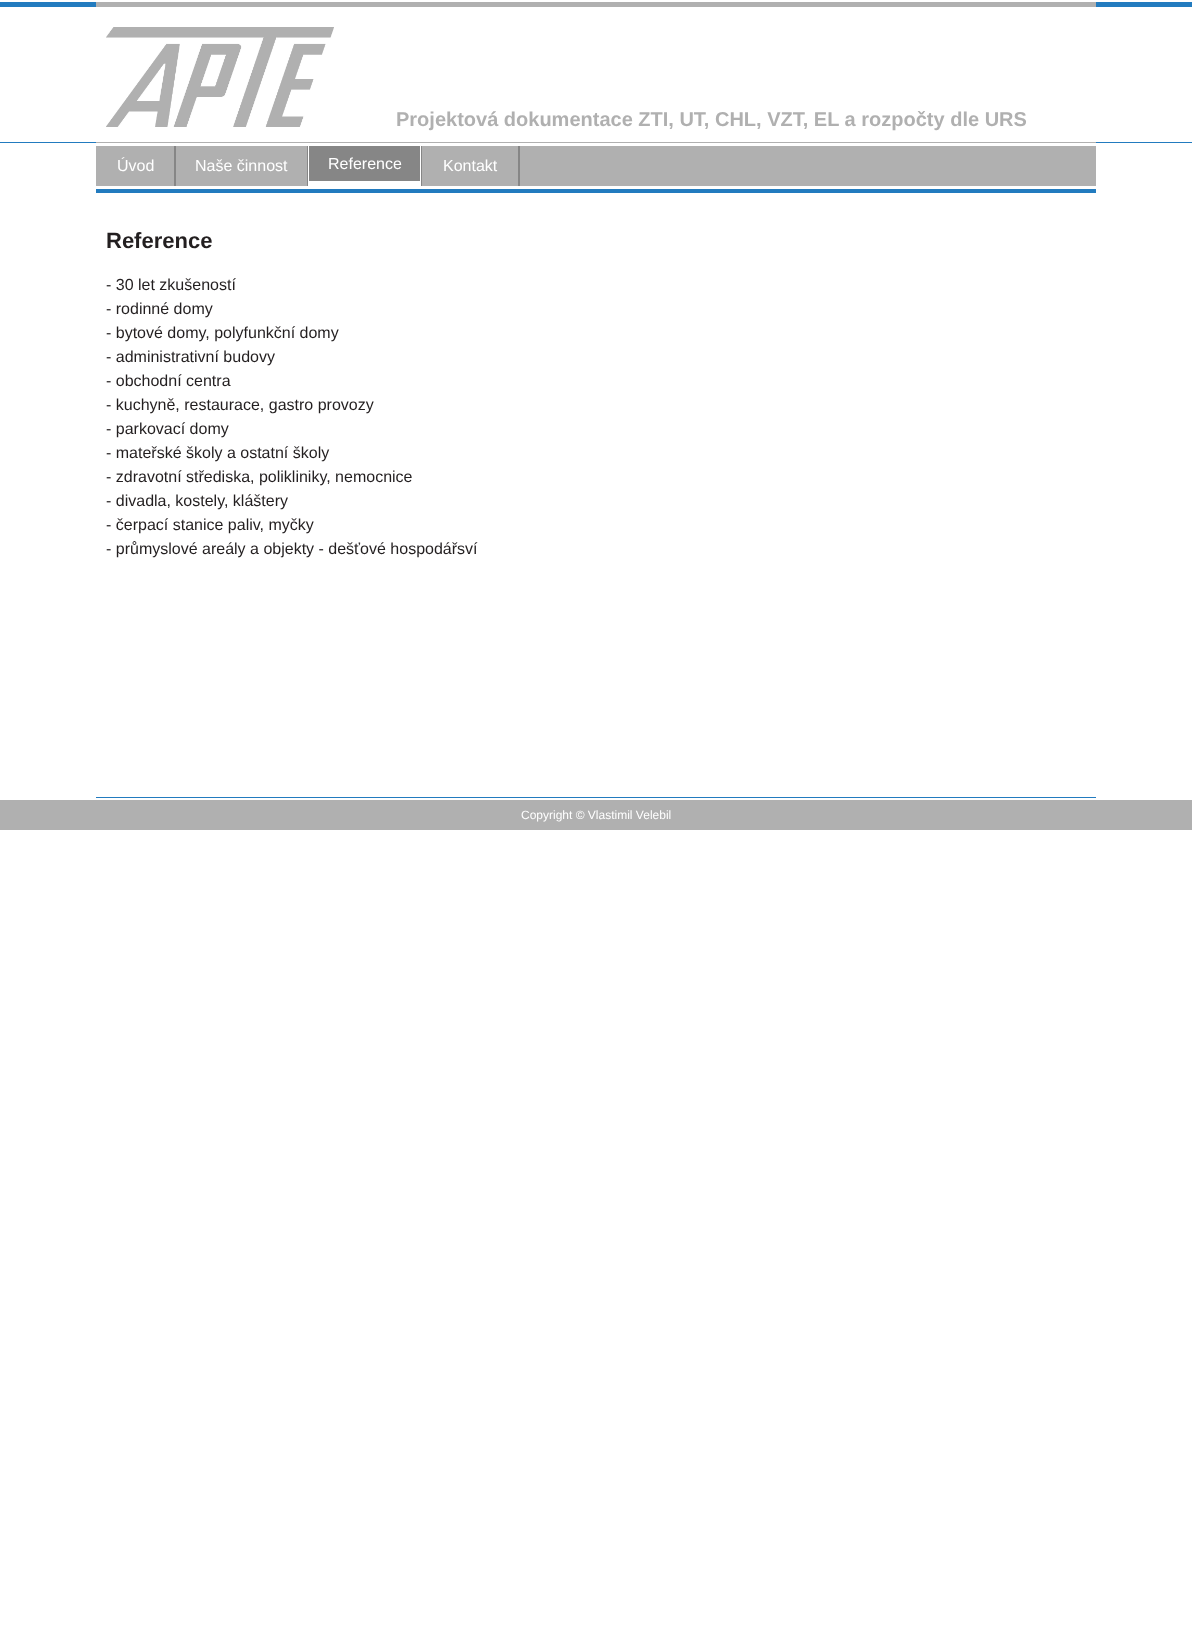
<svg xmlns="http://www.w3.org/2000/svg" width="1192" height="1629">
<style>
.a{font:bold 20px Liberation Sans;fill:#b0b0b0}
.b{font:16px Liberation Sans;fill:#fff}
.c{font:bold 22px Liberation Sans;fill:#231f20}
.d{font:16px Liberation Sans;fill:#231f20}
.e{font:12px Liberation Sans;fill:#fff}
</style>
<rect width="100%" height="100%" fill="#fff"/>
<path fill="#227bbf" d="M0 2h1192v5H0z"/>
<path fill="#227bbf" d="M0 142h1192v1H0z"/>
<path fill="#b0b0b0" d="M96 2h1000v5H96z"/>
<path fill="#b0b0b0" d="M96 142h1000v1H96z"/>
<image href="1.png" x="106" y="27" width="228" height="100"/>
<path fill="#b0b0b0" d="M96 146h1000v40H96z"/>
<path fill="#868686" d="M174 146h2v40H174z"/>
<path fill="#868686" d="M307 146h1v40H307z"/>
<path fill="#868686" d="M309 146h111v35H309z"/>
<path fill="#fff" d="M420 146h1v41H420z"/>
<path fill="#fff" d="M308 181h113v5H308z"/>
<path fill="#fff" d="M308 146h1v41H308z"/>
<path fill="#868686" d="M518 146h2v40H518z"/>
<path fill="#868686" d="M421 146h1v40H421z"/>
<path fill="#227bbf" d="M96 189h1000v4H96z"/>
<path fill="#227bbf" d="M96 797h1000v1H96z"/>
<path fill="#b0b0b0" d="M0 800h1192v30H0z"/>
<text class="a" x="396" y="126">Projektová dokumentace ZTI, UT, CHL, VZT, EL a rozpočty dle URS</text>
<text class="b" x="117" y="171">Úvod</text>
<text class="b" x="195" y="171">Naše činnost</text>
<text class="b" x="328" y="169">Reference</text>
<text class="b" x="443" y="171">Kontakt</text>
<text class="c" x="106" y="248">Reference</text>
<text class="d" x="106" y="290">- 30 let zkušeností</text>
<text class="d" x="106" y="314">- rodinné domy</text>
<text class="d" x="106" y="338">- bytové domy, polyfunkční domy</text>
<text class="d" x="106" y="362">- administrativní budovy</text>
<text class="d" x="106" y="386">- obchodní centra</text>
<text class="d" x="106" y="410">- kuchyně, restaurace, gastro provozy</text>
<text class="d" x="106" y="434">- parkovací domy</text>
<text class="d" x="106" y="458">- mateřské školy a ostatní školy</text>
<text class="d" x="106" y="482">- zdravotní střediska, polikliniky, nemocnice</text>
<text class="d" x="106" y="506">- divadla, kostely, kláštery</text>
<text class="d" x="106" y="530">- čerpací stanice paliv, myčky</text>
<text class="d" x="106" y="554">- průmyslové areály a objekty - dešťové hospodářsví</text>
<text class="e" x="521" y="819">Copyright © Vlastimil Velebil</text>
</svg>
